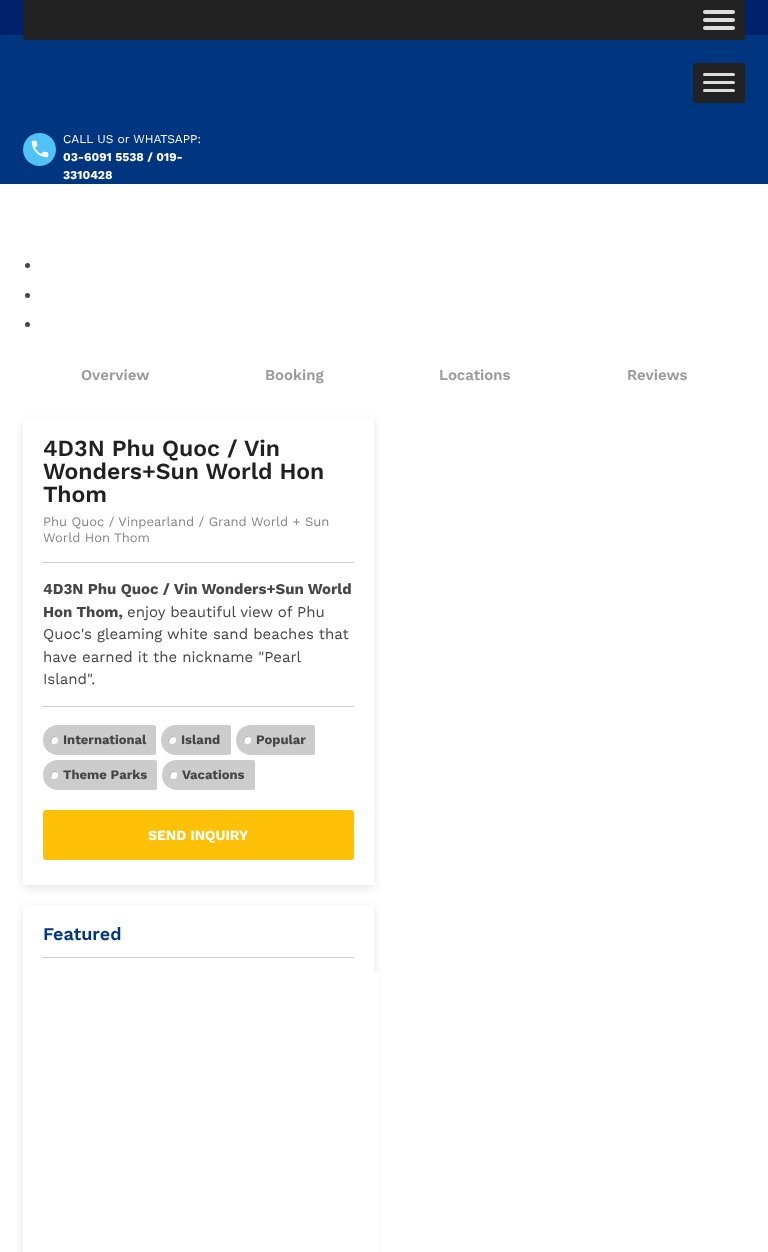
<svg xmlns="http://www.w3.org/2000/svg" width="768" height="1252">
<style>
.a{font:12px Work Sans;fill:#fff}
.b{font:bold 12px Work Sans;fill:#fff}
.c{font:600 15px Work Sans;fill:#9a9a9a}
.d{font:600 23px Work Sans;fill:#212121}
.e{font:13px Work Sans;fill:#858585}
.f{font:bold 15px Work Sans;fill:#454545}
.g{font:15px Work Sans;fill:#454545}
.h{font:bold 13px Work Sans;fill:#454545}
.i{font:bold 14px Work Sans;fill:#fff}
.j{font:600 18px Work Sans;fill:#003580}
</style>
<defs>
<clipPath id="clip1"><path d="M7 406h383v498h-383zm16 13h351v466h-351z" clip-rule="evenodd"/></clipPath>
<clipPath id="clip2"><path d="M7 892h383v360h-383zm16 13h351v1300h-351z" clip-rule="evenodd"/></clipPath>
</defs>
<rect width="100%" height="100%" fill="#fff"/>
<path fill="#003580" d="M0 35h768v149H0z"/>
<path fill="#00216c" d="M0 0h768v35H0z"/>
<rect fill="#222" x="23" width="722" height="40" rx="2"/>
<rect fill="#ddd" x="703" y="10" width="32" height="4" rx="2"/>
<rect fill="#ddd" x="703" y="18" width="32" height="4" rx="2"/>
<rect fill="#ddd" x="703" y="26" width="32" height="4" rx="2"/>
<rect fill="#222" x="693" y="63" width="52" height="40" rx="2"/>
<rect fill="#ddd" x="703" y="73" width="32" height="3" rx="1.5"/>
<rect fill="#ddd" x="703" y="81" width="32" height="3" rx="1.5"/>
<rect fill="#ddd" x="703" y="89" width="32" height="3" rx="1.5"/>
<circle fill="#4fc3f7" cx="39.5" cy="149.5" r="16.5"/>
<image href="1.png" x="31" y="140" width="18" height="18"/>
<circle fill="#454545" cx="27.5" cy="265.5" r="2.5"/>
<circle fill="#454545" cx="27.5" cy="295.5" r="2.5"/>
<circle fill="#454545" cx="27.5" cy="324.5" r="2.5"/>
<g clip-path="url(#clip1)">
<path fill="#0000001a" filter="blur(5px)" d="M23 422h351v466H23z"/>
</g>
<path fill="#ccc" d="M43 562h311v1H43z"/>
<path fill="#ccc" d="M43 706h311v1H43z"/>
<path fill="#ccc" d="M58 725h96c1 0 2 1 2 2v26c0 1-1 2-2 2h-96c-8.5 0-15-6.5-15-15c0-8.5 6.5-15 15-15z"/>
<circle fill="#fff" cx="54" cy="740" r="4"/>
<path fill="#0000004d" d="M55 737c1 0 1.5 .5 2.5 1c-4-5.5-11 2-5.5 5.5c-1.5-2.5-.5-6.5 3-6.5z"/>
<path fill="#ccc" d="M176 725h53c1 0 2 1 2 2v26c0 1-1 2-2 2h-53c-8.5 0-15-6.5-15-15c0-8.5 6.5-15 15-15z"/>
<circle fill="#fff" cx="172" cy="740" r="4"/>
<path fill="#0000004d" d="M173 737c1 0 1.5 .5 2.5 1c-4-5.5-11 2-5.5 5.5c-1.5-2.5-.5-6.5 3-6.5z"/>
<path fill="#ccc" d="M251 725h62c1 0 2 1 2 2v26c0 1-1 2-2 2h-62c-8.5 0-15-6.5-15-15c0-8.5 6.5-15 15-15z"/>
<circle fill="#fff" cx="247" cy="740" r="4"/>
<path fill="#0000004d" d="M248 737c1 0 1.5 .5 2.5 1c-4-5.5-11 2-5.5 5.5c-1.5-2.5-.5-6.5 3-6.5z"/>
<path fill="#ccc" d="M58 760h97c1 0 2 1 2 2v26c0 1-1 2-2 2h-97c-8.5 0-15-6.5-15-15c0-8.5 6.5-15 15-15z"/>
<circle fill="#fff" cx="54" cy="775" r="4"/>
<path fill="#0000004d" d="M55 772c1 0 1.5 .5 2.5 1c-4-5.5-11 2-5.5 5.5c-1.5-2.5-.5-6.5 3-6.5z"/>
<path fill="#ccc" d="M177 760h76c1 0 2 1 2 2v26c0 1-1 2-2 2h-76c-8.5 0-15-6.5-15-15c0-8.5 6.5-15 15-15z"/>
<circle fill="#fff" cx="173" cy="775" r="4"/>
<path fill="#0000004d" d="M174 772c1 0 1.5 .5 2.5 1c-4-5.5-11 2-5.5 5.5c-1.5-2.5-.5-6.5 3-6.5z"/>
<rect fill="#ffc107" x="43" y="810" width="311" height="50" rx="3"/>
<g clip-path="url(#clip2)">
<path fill="#0000001a" filter="blur(5px)" d="M23 908h351v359H23z"/>
</g>
<path fill="#ccc" d="M43 957h311v1H43z"/>
<path fill="#fff" d="M374 972h6v280H374z"/>
<text class="a" x="63" y="143">CALL US or WHATSAPP:</text>
<text class="b" x="63" y="161">03-6091 5538 / 019-</text>
<text class="b" x="63" y="179">3310428</text>
<text class="c" x="81" y="380">Overview</text>
<text class="c" x="265" y="380">Booking</text>
<text class="c" x="439" y="380">Locations</text>
<text class="c" x="627" y="380">Reviews</text>
<text class="d" x="43" y="456">4D3N Phu Quoc / Vin</text>
<text class="d" x="43" y="479">Wonders+Sun World Hon</text>
<text class="d" x="43" y="502">Thom</text>
<text class="e" x="43" y="526">Phu Quoc / Vinpearland / Grand World + Sun</text>
<text class="e" x="43" y="542">World Hon Thom</text>
<text class="f" x="43" y="594">4D3N Phu Quoc / Vin Wonders+Sun World</text>
<text class="f" x="43" y="617">Hon Thom,</text>
<text class="g" x="127" y="617">enjoy beautiful view of Phu</text>
<text class="g" x="43" y="639">Quoc's gleaming white sand beaches that</text>
<text class="g" x="43" y="662">have earned it the nickname "Pearl</text>
<text class="g" x="43" y="684">Island".</text>
<text class="h" x="63" y="744">International</text>
<text class="h" x="181" y="744">Island</text>
<text class="h" x="256" y="744">Popular</text>
<text class="h" x="63" y="779">Theme Parks</text>
<text class="h" x="182" y="779">Vacations</text>
<text class="i" x="148" y="840">SEND INQUIRY</text>
<text class="j" x="43" y="940">Featured</text>
</svg>
